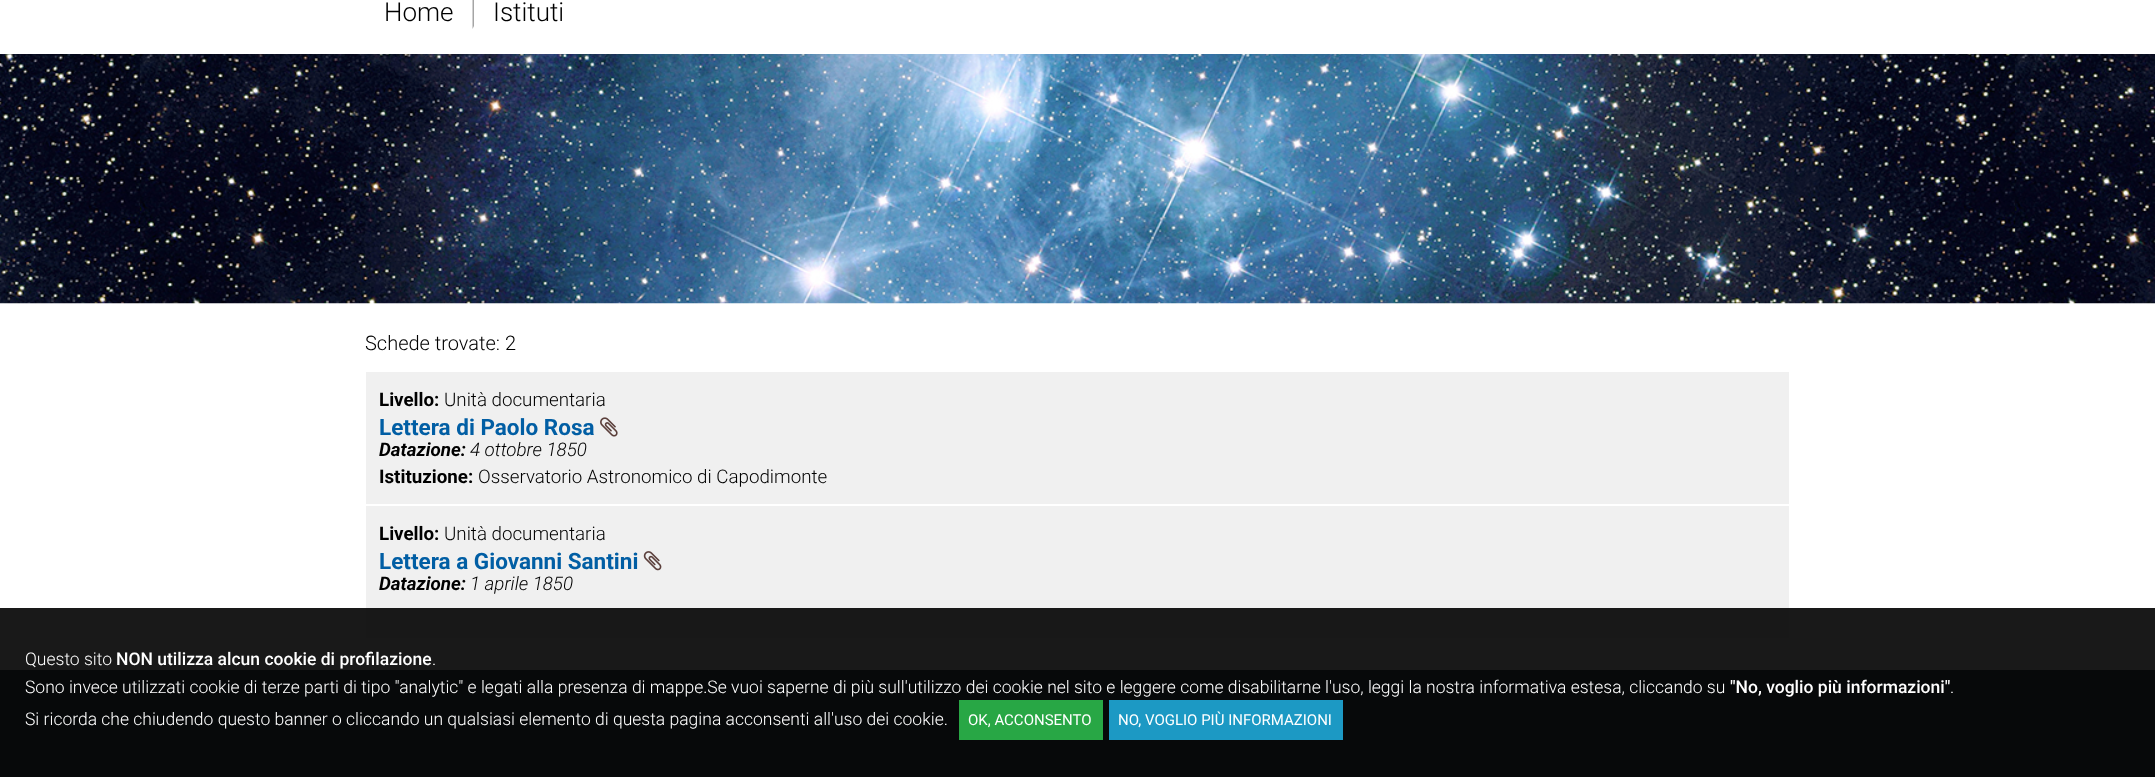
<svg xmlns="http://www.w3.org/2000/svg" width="2155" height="777">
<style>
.a{font:300 26px Roboto;fill:#000}
.b{font:300 20px Roboto;fill:#000}
.c{font:bold 18.75px Roboto;fill:#000}
.d{font:300 18.75px Roboto;fill:#000}
.e{font:bold 22.5px Roboto;fill:#015ea4}
.f{font:italic bold 18.75px Roboto;fill:#000}
.g{font:italic 300 18.75px Roboto;fill:#000}
.h{font:300 17.5px Roboto;fill:#fff}
.i{font:500 17.5px Roboto;fill:#fff}
.j{font:15px Roboto;fill:#fff}
</style>
<rect width="100%" height="100%" fill="#fff"/>
<path fill="#a5a5a5" d="M472.5 29v-29h1.5v26z"/>
<image href="1.png" x="0" y="54" width="2155" height="250"/>
<path fill="#f0f0f0" d="M366 372h1423v132H366z"/>
<image href="2.png" x="600" y="417" width="18" height="20"/>
<path fill="#f0f0f0" d="M366 506h1423v132H366z"/>
<image href="3.png" x="643" y="551" width="19" height="20"/>
<path fill="#4c5966" d="M0 670h2155v107H0z"/>
<path fill="#000000e6" d="M0 608h2155v169H0z"/>
<path fill="#28a745" d="M959 700h144v40H959z"/>
<path fill="#1c99c4" d="M1109 700h234v40H1109z"/>
<text class="a" x="384" y="21">Home</text>
<text class="a" x="493" y="21">Istituti</text>
<text class="b" x="365" y="350">Schede trovate: 2</text>
<text class="c" x="379" y="406">Livello:</text>
<text class="d" x="444" y="406">Unità documentaria</text>
<text class="e" x="379" y="435">Lettera di Paolo Rosa</text>
<text class="f" x="379" y="456">Datazione:</text>
<text class="g" x="470" y="456">4 ottobre 1850</text>
<text class="c" x="379" y="483">Istituzione:</text>
<text class="d" x="478" y="483">Osservatorio Astronomico di Capodimonte</text>
<text class="c" x="379" y="540">Livello:</text>
<text class="d" x="444" y="540">Unità documentaria</text>
<text class="e" x="379" y="569">Lettera a Giovanni Santini</text>
<text class="f" x="379" y="590">Datazione:</text>
<text class="g" x="470" y="590">1 aprile 1850</text>
<text class="h" x="25" y="665">Questo sito</text>
<text class="i" x="116" y="665">NON utilizza alcun cookie di profilazione</text>
<text class="h" x="432" y="665">.</text>
<text class="h" x="25" y="693">Sono invece utilizzati cookie di terze parti di tipo "analytic" e legati alla presenza di mappe.Se vuoi saperne di più sull'utilizzo dei cookie nel sito e leggere come disabilitarne l'uso, leggi la nostra informativa estesa, cliccando su</text>
<text class="i" x="1730" y="693">"No, voglio più informazioni"</text>
<text class="h" x="1950" y="693">.</text>
<text class="h" x="25" y="725">Si ricorda che chiudendo questo banner o cliccando un qualsiasi elemento di questa pagina acconsenti all'uso dei cookie.</text>
<text class="j" x="968" y="725">OK, ACCONSENTO</text>
<text class="j" x="1118" y="725">NO, VOGLIO PIÙ INFORMAZIONI</text>
</svg>
